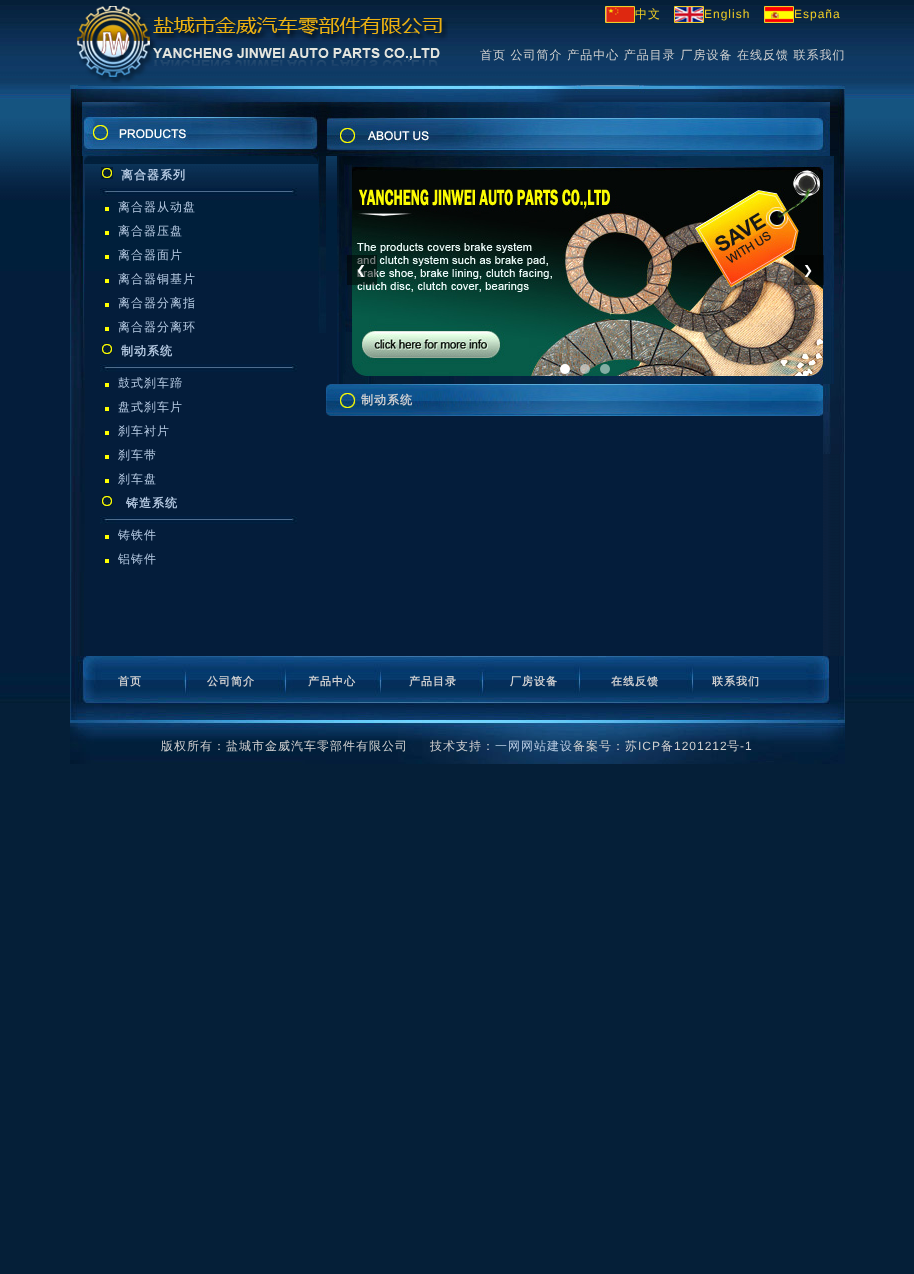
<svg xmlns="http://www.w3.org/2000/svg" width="914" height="1274">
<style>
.a{font:500 12px WenQuanYi Zen Hei;letter-spacing:1px;fill:#f0cd25}
.b{font:12px Liberation Sans;letter-spacing:1px;fill:#f0cd25}
.c{font:500 12px WenQuanYi Zen Hei;letter-spacing:1px;fill:#d0d0d0}
.d{font:bold 12px WenQuanYi Zen Hei;letter-spacing:1px;fill:#b5c9e1}
.e{font:500 12px WenQuanYi Zen Hei;letter-spacing:1px;fill:#b5c9e1}
.f{font:12px DejaVu Sans;letter-spacing:1px;fill:#fff}
.g{font:bold 12px WenQuanYi Zen Hei;letter-spacing:1px;fill:#d0d0d0}
.h{font:bold 11px WenQuanYi Zen Hei;letter-spacing:1px;fill:#d0d0d0}
.i{font:12px Liberation Sans;letter-spacing:1px;fill:#d0d0d0}
</style>
<rect width="100%" height="100%" fill="#051f38"/>
<image href="1.png" x="0" y="5" width="914" height="698"/>
<image href="2.png" x="77" y="6" width="371" height="77"/>
<path fill="none" stroke="#f0cd25" d="M605.5 6.5h29v16H605.5z"/>
<image href="3.png" x="606" y="7" width="28" height="15"/>
<path fill="none" stroke="#f0cd25" d="M674.5 6.5h29v16H674.5z"/>
<image href="4.png" x="675" y="7" width="28" height="15"/>
<path fill="none" stroke="#f0cd25" d="M764.5 6.5h29v16H764.5z"/>
<image href="5.png" x="765" y="7" width="28" height="15"/>
<image href="6.png" x="70" y="454" width="775" height="202"/>
<image href="7.png" x="70" y="85" width="775" height="28"/>
<image href="8.png" x="70" y="113" width="775" height="43"/>
<image href="9.png" x="70" y="156" width="15" height="416"/>
<image href="10.png" x="84" y="156" width="234" height="8"/>
<image href="11.png" x="101" y="167" width="12" height="12"/>
<image href="12.png" x="100" y="188" width="197" height="8"/>
<path fill="#ffff01" d="M105 207h4v4H105z"/>
<path fill="#ffff01" d="M105 231h4v4H105z"/>
<path fill="#ffff01" d="M105 255h4v4H105z"/>
<path fill="#ffff01" d="M105 279h4v4H105z"/>
<path fill="#ffff01" d="M105 303h4v4H105z"/>
<path fill="#ffff01" d="M105 327h4v4H105z"/>
<image href="11.png" x="101" y="343" width="12" height="12"/>
<image href="12.png" x="100" y="364" width="197" height="8"/>
<path fill="#ffff01" d="M105 383h4v4H105z"/>
<path fill="#ffff01" d="M105 407h4v4H105z"/>
<path fill="#ffff01" d="M105 431h4v4H105z"/>
<path fill="#ffff01" d="M105 455h4v4H105z"/>
<path fill="#ffff01" d="M105 479h4v4H105z"/>
<image href="11.png" x="101" y="495" width="12" height="12"/>
<image href="12.png" x="100" y="516" width="197" height="8"/>
<path fill="#ffff01" d="M105 535h4v4H105z"/>
<path fill="#ffff01" d="M105 559h4v4H105z"/>
<image href="13.png" x="318" y="156" width="8" height="177"/>
<image href="14.png" x="823" y="156" width="22" height="298"/>
<image href="15.png" x="337" y="156" width="497" height="228"/>
<path fill="#00000080" d="M347 255h30v30H347z"/>
<path fill="#00000080" d="M794 255h30v30H794z"/>
<circle fill="#fff" cx="565" cy="369" r="5"/>
<circle fill="#ffffff80" cx="585" cy="369" r="5"/>
<circle fill="#ffffff80" cx="605" cy="369" r="5"/>
<image href="16.png" x="326" y="384" width="497" height="32"/>
<image href="17.png" x="70" y="656" width="775" height="108"/>
<text class="a" x="635" y="18">中文</text>
<text class="b" x="704" y="18">English</text>
<text class="b" x="794" y="18">España</text>
<text class="c" x="480" y="59">首页 公司简介 产品中心 产品目录 厂房设备 在线反馈 联系我们</text>
<text class="d" x="121" y="179">离合器系列</text>
<text class="e" x="118" y="211">离合器从动盘</text>
<text class="e" x="118" y="235">离合器压盘</text>
<text class="e" x="118" y="259">离合器面片</text>
<text class="e" x="118" y="283">离合器铜基片</text>
<text class="e" x="118" y="307">离合器分离指</text>
<text class="e" x="118" y="331">离合器分离环</text>
<text class="d" x="121" y="355">制动系统</text>
<text class="e" x="118" y="387">鼓式刹车蹄</text>
<text class="e" x="118" y="411">盘式刹车片</text>
<text class="e" x="118" y="435">刹车衬片</text>
<text class="e" x="118" y="459">刹车带</text>
<text class="e" x="118" y="483">刹车盘</text>
<text class="d" x="126" y="507">铸造系统</text>
<text class="e" x="118" y="539">铸铁件</text>
<text class="e" x="118" y="563">铝铸件</text>
<text class="f" x="356" y="274">❮</text>
<text class="f" x="803" y="274">❯</text>
<text class="g" x="361" y="404">制动系统</text>
<text class="h" x="118" y="685">首页</text>
<text class="h" x="207" y="685">公司简介</text>
<text class="h" x="308" y="685">产品中心</text>
<text class="h" x="409" y="685">产品目录</text>
<text class="h" x="510" y="685">厂房设备</text>
<text class="h" x="611" y="685">在线反馈</text>
<text class="h" x="712" y="685">联系我们</text>
<text class="c" x="161" y="750">版权所有：盐城市金威汽车零部件有限公司</text>
<text class="c" x="430" y="750">技术支持：</text>
<text class="e" x="495" y="750">一网网站建设</text>
<text class="c" x="573" y="750">备案号：苏</text>
<text class="i" x="638" y="750">ICP</text>
<text class="c" x="661" y="750">备</text>
<text class="i" x="674" y="750">1201212</text>
<text class="c" x="727" y="750">号</text>
<text class="i" x="740" y="750">-1</text>
</svg>
